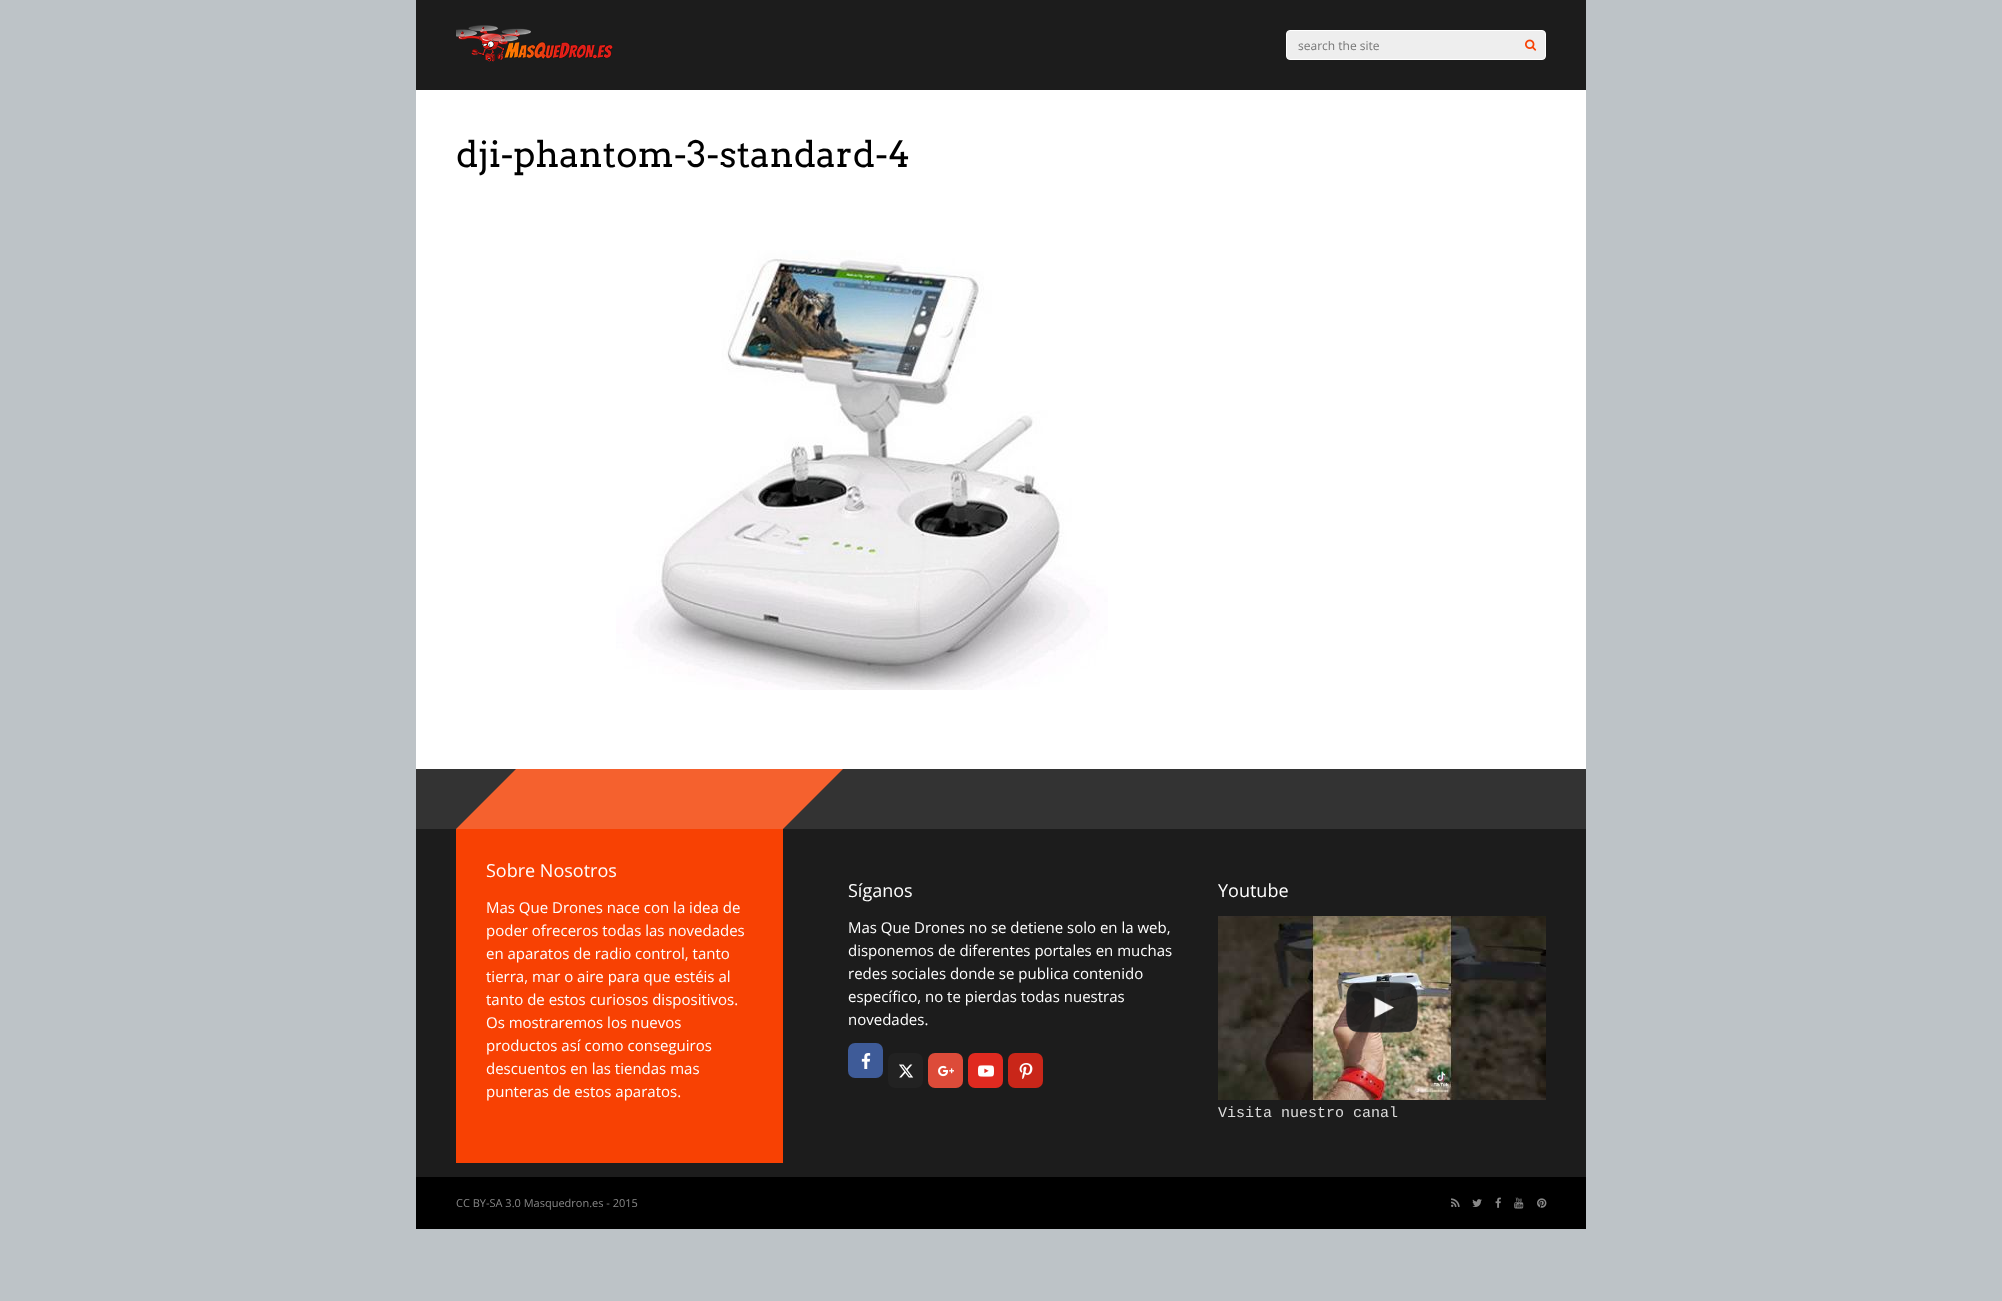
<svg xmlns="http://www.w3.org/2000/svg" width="2002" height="1301">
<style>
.a{font:12px Open Sans;fill:#757575}
.b{font:36px Arvo;fill:#000}
.c{font:18px Open Sans;fill:#fff}
.d{font:15px Open Sans;fill:#fff}
.e{font:15px Liberation Mono;fill:#ddd}
.f{font:11px Open Sans;fill:#888}
</style>
<rect width="100%" height="100%" fill="#bdc3c7"/>
<path fill="#fff" d="M416 90h1170v679H416z"/>
<path fill="#1c1c1c" d="M416 0h1170v90H416z"/>
<image href="1.png" x="456" y="25" width="157" height="37"/>
<rect fill="#eee" stroke="#fff" x="1286.5" y="30.5" width="259" height="29" rx="3.5"/>
<image href="2.png" x="1525" y="39" width="12" height="12"/>
<image href="3.png" x="616" y="250" width="492" height="440"/>
<path fill="#333" d="M416 769h1170v60H416z"/>
<path fill="#f5612e" d="M516 769h327l-60 60h-327z"/>
<path fill="#1c1c1c" d="M416 829h1170v348H416z"/>
<path fill="#f84103" d="M456 829h327v334H456z"/>
<rect fill="#3e5b98" x="848" y="1043" width="35" height="35" rx="7"/>
<image href="4.png" x="861" y="1053" width="10" height="16"/>
<rect fill="#222" x="888" y="1053" width="35" height="35" rx="7"/>
<image href="5.png" x="899" y="1064" width="15" height="14"/>
<rect fill="#dd4b39" x="928" y="1053" width="35" height="35" rx="7"/>
<image href="6.png" x="938" y="1065" width="16" height="12"/>
<rect fill="#e02a20" x="968" y="1053" width="35" height="35" rx="7"/>
<image href="7.png" x="978" y="1065" width="16" height="12"/>
<rect fill="#c92619" x="1008" y="1053" width="35" height="35" rx="7"/>
<image href="8.png" x="1019" y="1063" width="14" height="16"/>
<image href="9.png" x="1218" y="916" width="328" height="184"/>
<image href="10.png" x="1346" y="982" width="72" height="51"/>
<path fill="#000" d="M416 1177h1170v52H416z"/>
<image href="11.png" x="1451" y="1198" width="9" height="9"/>
<image href="12.png" x="1472" y="1199" width="10" height="8"/>
<image href="13.png" x="1495" y="1197" width="6" height="11"/>
<image href="14.png" x="1514" y="1197" width="10" height="12"/>
<image href="15.png" x="1537" y="1198" width="10" height="10"/>
<text class="a" x="1298" y="50">search the site</text>
<text class="b" x="456" y="167">dji-phantom-3-standard-4</text>
<text class="c" x="486" y="877">Sobre Nosotros</text>
<text class="d" x="486" y="913">Mas Que Drones nace con la idea de</text>
<text class="d" x="486" y="936">poder ofreceros todas las novedades</text>
<text class="d" x="486" y="959">en aparatos de radio control, tanto</text>
<text class="d" x="486" y="982">tierra, mar o aire para que estéis al</text>
<text class="d" x="486" y="1005">tanto de estos curiosos dispositivos.</text>
<text class="d" x="486" y="1028">Os mostraremos los nuevos</text>
<text class="d" x="486" y="1051">productos así como conseguiros</text>
<text class="d" x="486" y="1074">descuentos en las tiendas mas</text>
<text class="d" x="486" y="1097">punteras de estos aparatos.</text>
<text class="c" x="848" y="897">Síganos</text>
<text class="d" x="848" y="933">Mas Que Drones no se detiene solo en la web,</text>
<text class="d" x="848" y="956">disponemos de diferentes portales en muchas</text>
<text class="d" x="848" y="979">redes sociales donde se publica contenido</text>
<text class="d" x="848" y="1002">específico, no te pierdas todas nuestras</text>
<text class="d" x="848" y="1025">novedades.</text>
<text class="c" x="1218" y="897">Youtube</text>
<text class="e" x="1218" y="1117">Visita nuestro canal</text>
<text class="f" x="456" y="1207">CC BY-SA 3.0 Masquedron.es - 2015</text>
</svg>
